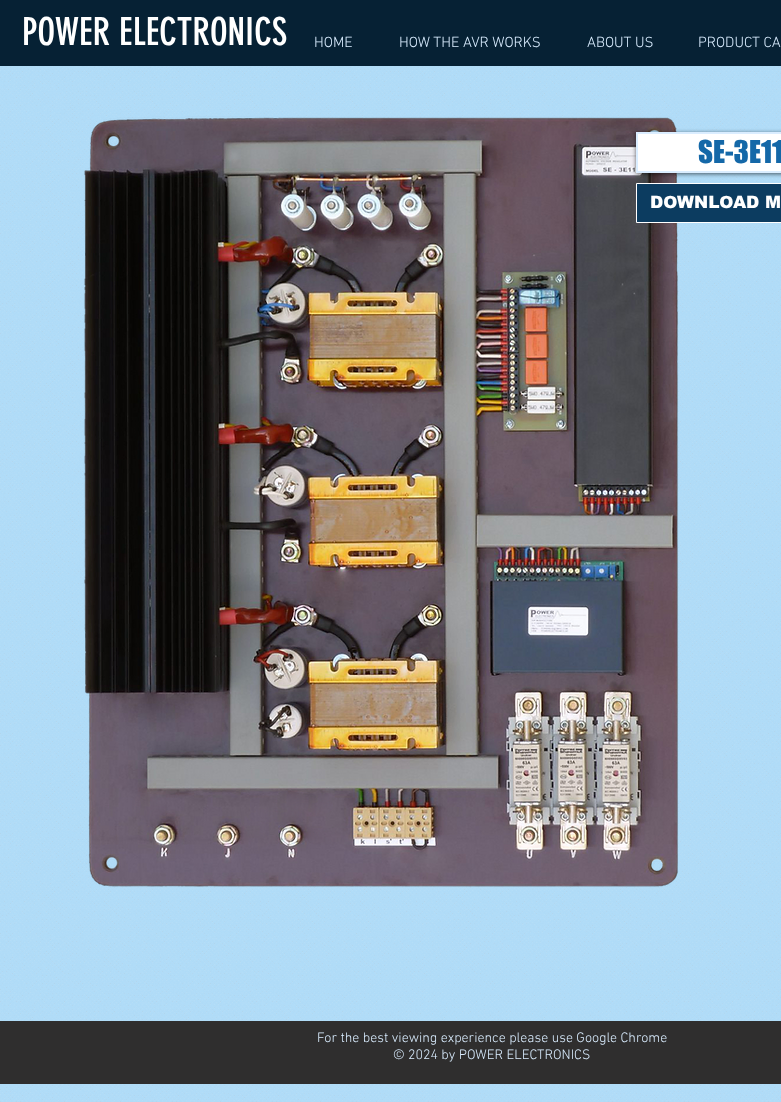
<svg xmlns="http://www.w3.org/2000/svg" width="781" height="1102">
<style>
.a{font:38px 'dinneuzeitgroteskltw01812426';fill:#fff}
.b{font:300 15px 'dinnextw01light';fill:#daedff}
.c{font:29px 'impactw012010';fill:#1468a8}
.d{font:900 17px arial;fill:#fff}
.e{font:300 14px 'dinnextw01light';fill:#daedff}
</style>
<rect width="100%" height="100%" fill="#b0dcf8"/>
<path fill="#062134" d="M0 0h781v66H0z"/>
<image href="2.png" x="0" y="66" width="781" height="1036"/>
<image href="1.png" x="84" y="116" width="594" height="771"/>
<path fill="#00000099" filter="blur(2px)" d="M636 133h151v41H636z"/>
<path fill="#fff" stroke="#daedff" stroke-width="2" d="M637 133h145v39H637z"/>
<path fill="#0c3c60" stroke="#fff" d="M636.5 183.5h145v39H636.5z"/>
<path fill="#2f2e2e" d="M0 1021h781v63H0z"/>
<text class="a" x="22" y="45">POWER ELECTRONICS</text>
<text class="b" x="314" y="47">HOME</text>
<text class="b" x="399" y="47">HOW THE AVR WORKS</text>
<text class="b" x="587" y="47">ABOUT US</text>
<text class="b" x="698" y="47">PRODUCT CA</text>
<text class="c" x="698" y="163">SE-3E11</text>
<text class="d" x="650" y="208">DOWNLOAD M</text>
<text class="e" x="317" y="1042">For the best viewing experience please use Google Chrome</text>
<text class="e" x="393" y="1059">© 2024 by POWER ELECTRONICS</text>
</svg>
